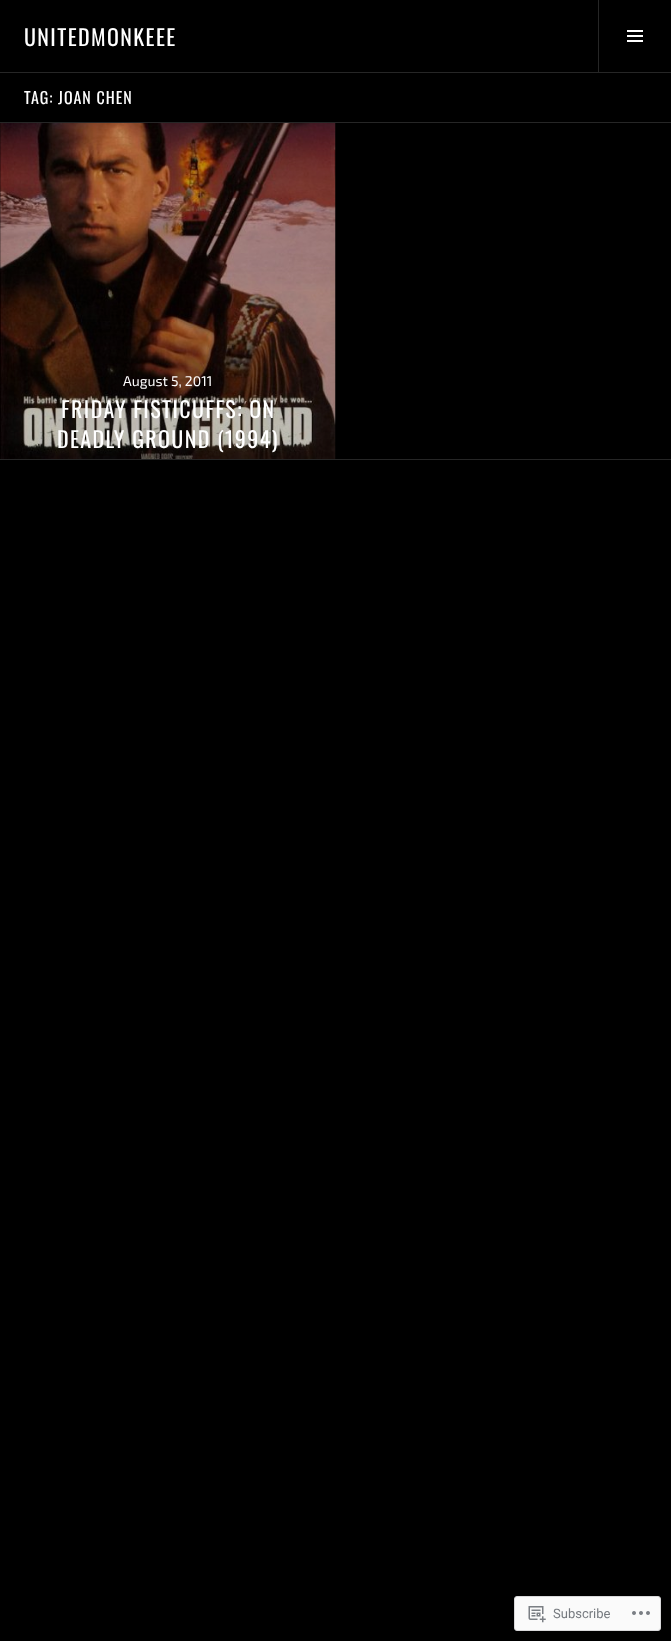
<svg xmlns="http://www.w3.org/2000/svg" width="671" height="1641">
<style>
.a{font:22px Oswald;letter-spacing:1.4px;fill:#fff}
.b{font:16px Oswald;letter-spacing:1px;fill:#fff}
.c{font:14px 'Exo 2';fill:#fff}
.d{font:13px Roboto;fill:#767a7f}
</style>
<rect width="100%" height="100%" fill="#000"/>
<path fill="#262626" d="M0 72h671v1H0z"/>
<path fill="#262626" d="M598 0h1v72H598z"/>
<image href="1.png" x="627" y="30" width="16" height="12"/>
<path fill="#262626" d="M0 122h671v1H0z"/>
<image href="2.png" x="0" y="123" width="336" height="336"/>
<path fill="#262626" d="M0 459h671v1H0z"/>
<rect fill="#fafafa" stroke="#d8d8da" x="514.5" y="1596.5" width="146" height="34" rx="2.5"/>
<image href="3.png" x="528" y="1606" width="18" height="17"/>
<image href="4.png" x="632" y="1611" width="18" height="4"/>
<text class="a" x="24" y="46">UNITEDMONKEEE</text>
<text class="b" x="24" y="104">TAG: JOAN CHEN</text>
<text class="c" x="123" y="386">August 5, 2011</text>
<text class="a" x="61" y="418">FRIDAY FISTICUFFS: ON</text>
<text class="a" x="57" y="448">DEADLY GROUND (1994)</text>
<text class="d" x="553" y="1618">Subscribe</text>
</svg>
